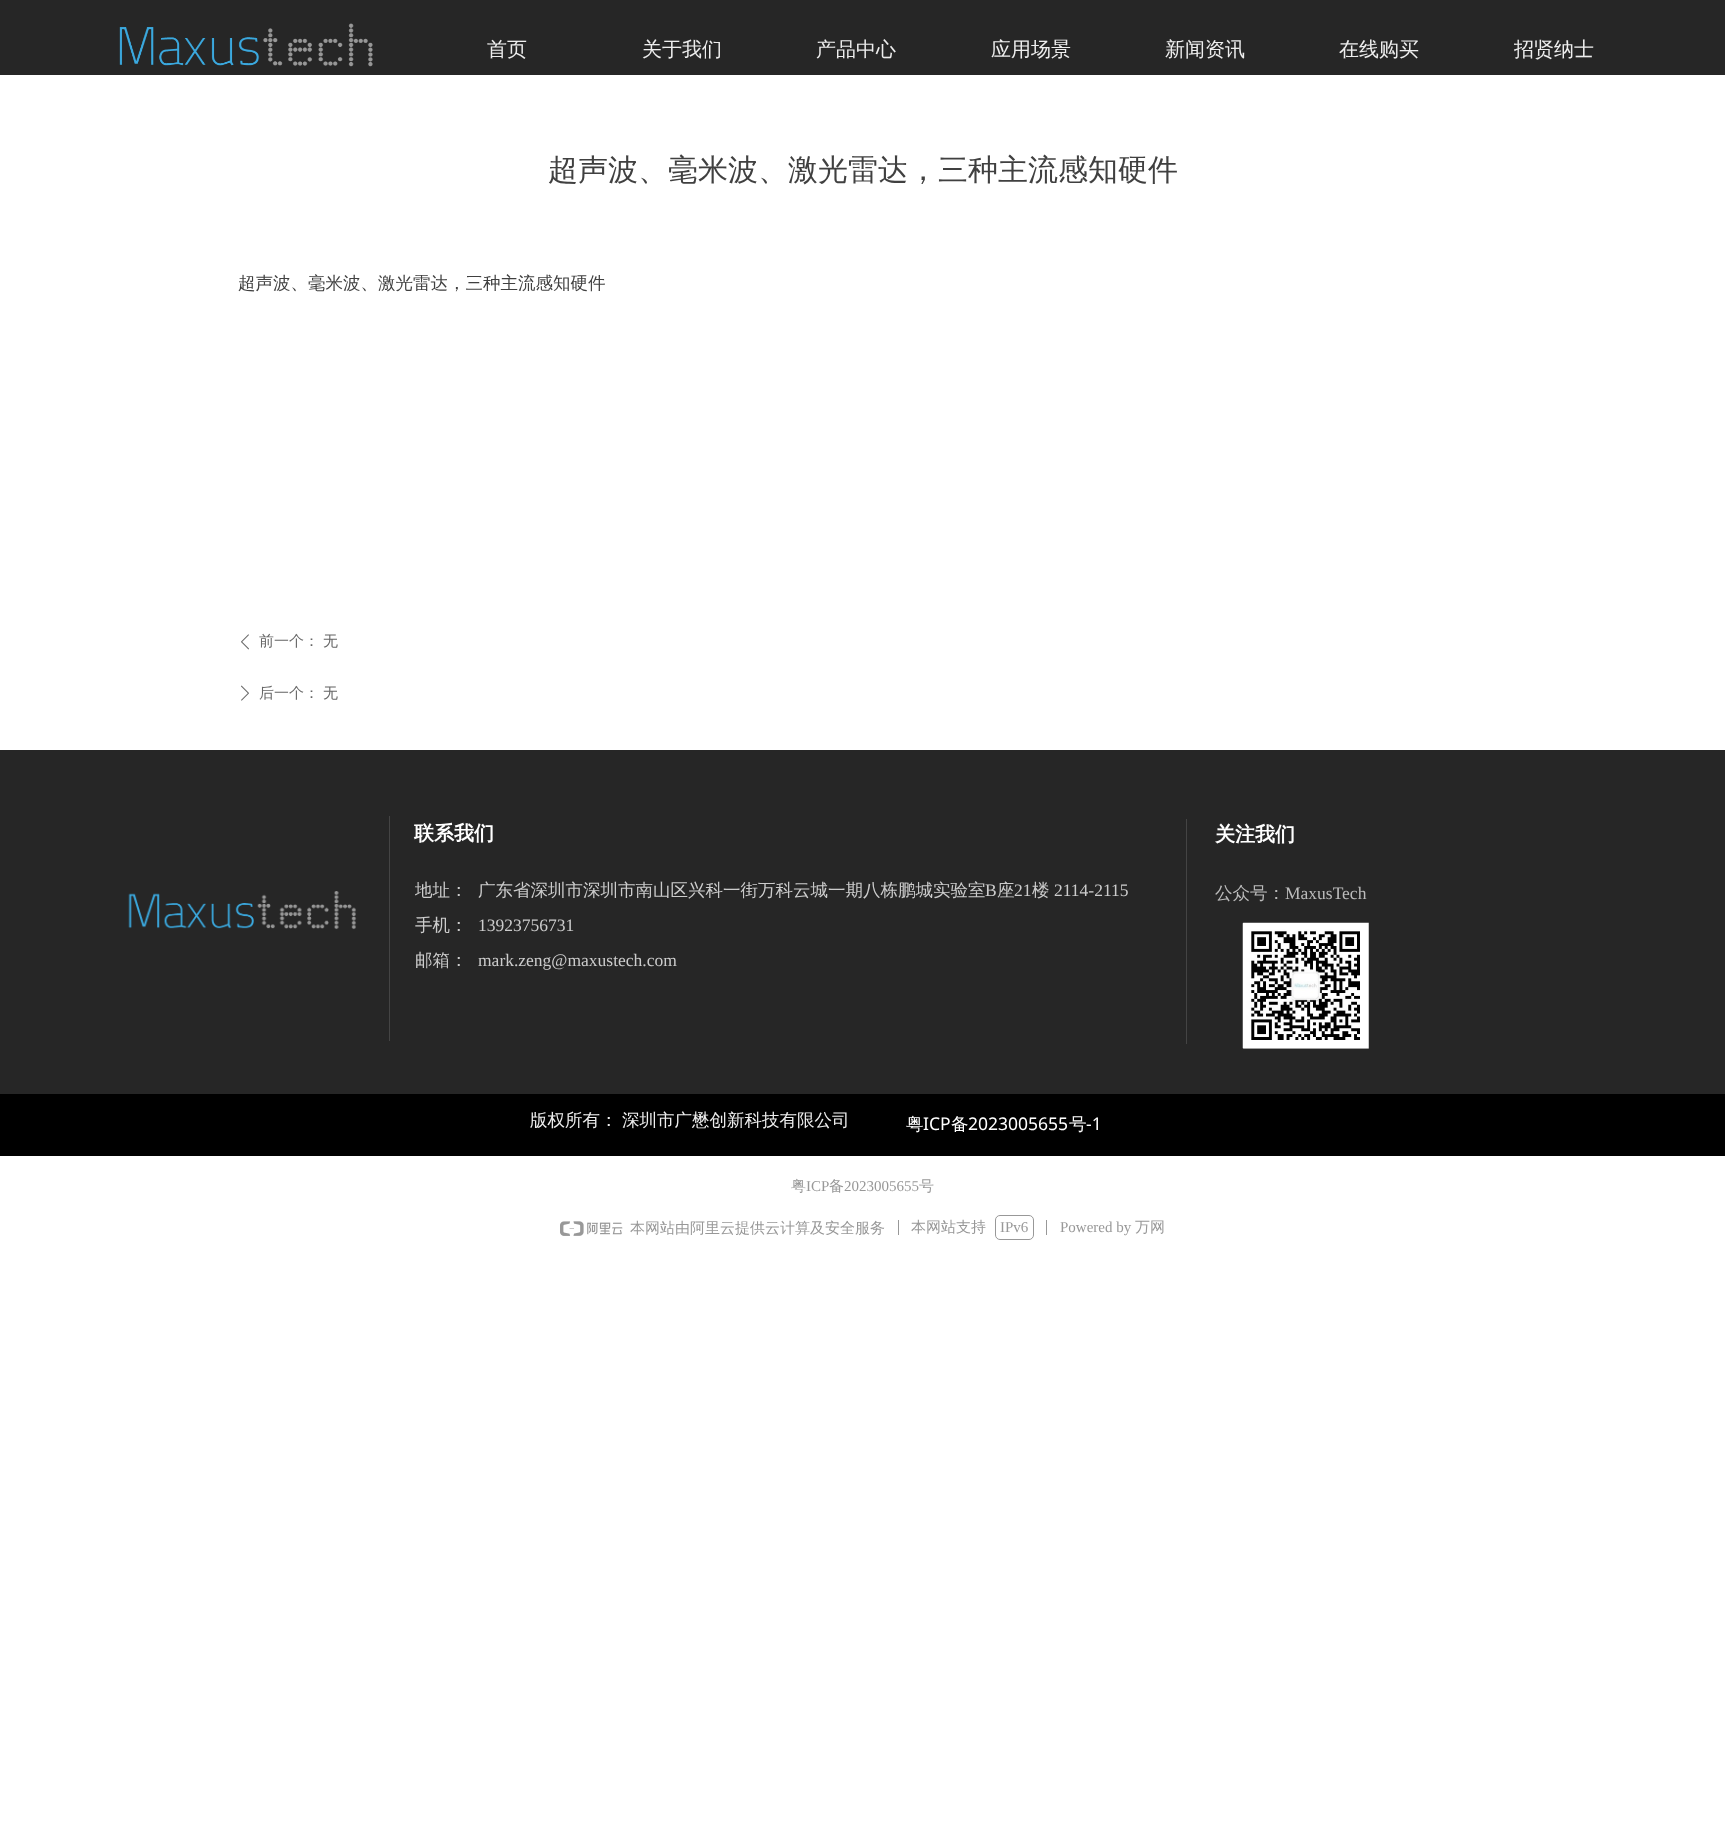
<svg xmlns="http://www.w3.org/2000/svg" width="1725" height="1838">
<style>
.a{font:500 20px WenQuanYi Zen Hei;fill:#eee}
.b{font:500 30px WenQuanYi Zen Hei;fill:#404040}
.c{font:500 17.5px WenQuanYi Zen Hei;fill:#404040}
.d{font:500 15px WenQuanYi Zen Hei;fill:#666}
.e{font:bold 20px WenQuanYi Zen Hei;fill:#fff}
.f{font:500 17.5px WenQuanYi Zen Hei;fill:#bbb}
.g{font:17.5px Liberation Serif;fill:#bbb}
.h{font:500 17.5px WenQuanYi Zen Hei;fill:#ccc}
.i{font:17.5px Liberation Serif;fill:#ccc}
.j{font:500 17.5px WenQuanYi Zen Hei;fill:#eee}
.k{font:500 17.5px WenQuanYi Zen Hei;fill:#fff}
.l{font:17.5px Noto Sans;fill:#fff}
.m{font:500 15px WenQuanYi Zen Hei;fill:#989898}
.n{font:15px Liberation Serif;fill:#989898}
</style>
<rect width="100%" height="100%" fill="#fff"/>
<path fill="#262626" d="M0 0h1725v75H0z"/>
<image href="1.png" x="119" y="23" width="254" height="44"/>
<image href="2.png" x="241" y="634" width="8" height="16"/>
<image href="3.png" x="241" y="685" width="8" height="16"/>
<path fill="#262626" d="M0 750h1725v344H0z"/>
<path fill="#444" d="M389 816h1v225H389z"/>
<path fill="#444" d="M1186 819h1v225H1186z"/>
<image href="4.png" x="1242" y="922" width="127" height="127"/>
<image href="5.png" x="128" y="891" width="229" height="39"/>
<path fill="#000" d="M0 1094h1725v62H0z"/>
<image href="6.png" x="560" y="1221" width="63" height="15"/>
<path fill="#989898" d="M898 1220h1v15H898z"/>
<rect fill="none" stroke="#989898" x="995.5" y="1215.5" width="38" height="24" rx="4.5"/>
<path fill="#989898" d="M1046 1220h1v15H1046z"/>
<text class="a" x="487" y="56">首页</text>
<text class="a" x="642" y="56">关于我们</text>
<text class="a" x="816" y="56">产品中心</text>
<text class="a" x="991" y="56">应用场景</text>
<text class="a" x="1165" y="56">新闻资讯</text>
<text class="a" x="1339" y="56">在线购买</text>
<text class="a" x="1514" y="56">招贤纳士</text>
<text class="b" x="548" y="180">超声波、毫米波、激光雷达，三种主流感知硬件</text>
<text class="c" x="238" y="289">超声波、毫米波、激光雷达，三种主流感知硬件</text>
<text class="d" x="259" y="646">前一个：</text>
<text class="d" x="323" y="646">无</text>
<text class="d" x="259" y="698">后一个：</text>
<text class="d" x="323" y="698">无</text>
<text class="e" x="414" y="840">联系我们</text>
<text class="e" x="1215" y="841">关注我们</text>
<text class="f" x="1215" y="899">公众号：</text>
<text class="g" x="1285" y="899">MaxusTech</text>
<text class="h" x="415" y="896">地址：</text>
<text class="h" x="478" y="896">广东省深圳市深圳市南山区兴科一街万科云城一期八栋鹏城实验室</text>
<text class="i" x="985" y="896">B</text>
<text class="h" x="997" y="896">座</text>
<text class="i" x="1014" y="896">21</text>
<text class="h" x="1032" y="896">楼</text>
<text class="i" x="1054" y="896">2114-2115</text>
<text class="h" x="415" y="931">手机：</text>
<text class="i" x="478" y="931">13923756731</text>
<text class="h" x="415" y="966">邮箱：</text>
<text class="i" x="478" y="966">mark.zeng@maxustech.com</text>
<text class="j" x="530" y="1126">版权所有：</text>
<text class="j" x="622" y="1126">深圳市广懋创新科技有限公司</text>
<text class="k" x="906" y="1130">粤</text>
<text class="l" x="923" y="1130">ICP</text>
<text class="k" x="951" y="1130">备</text>
<text class="l" x="968" y="1130">2023005655</text>
<text class="k" x="1069" y="1130">号</text>
<text class="l" x="1086" y="1130">-1</text>
<text class="m" x="791" y="1191">粤</text>
<text class="n" x="806" y="1191">ICP</text>
<text class="m" x="829" y="1191">备</text>
<text class="n" x="844" y="1191">2023005655</text>
<text class="m" x="919" y="1191">号</text>
<text class="m" x="630" y="1233">本网站由阿里云提供云计算及安全服务</text>
<text class="m" x="911" y="1232">本网站支持</text>
<text class="n" x="1000" y="1232">IPv6</text>
<text class="n" x="1060" y="1232">Powered by</text>
<text class="m" x="1135" y="1232">万网</text>
</svg>
